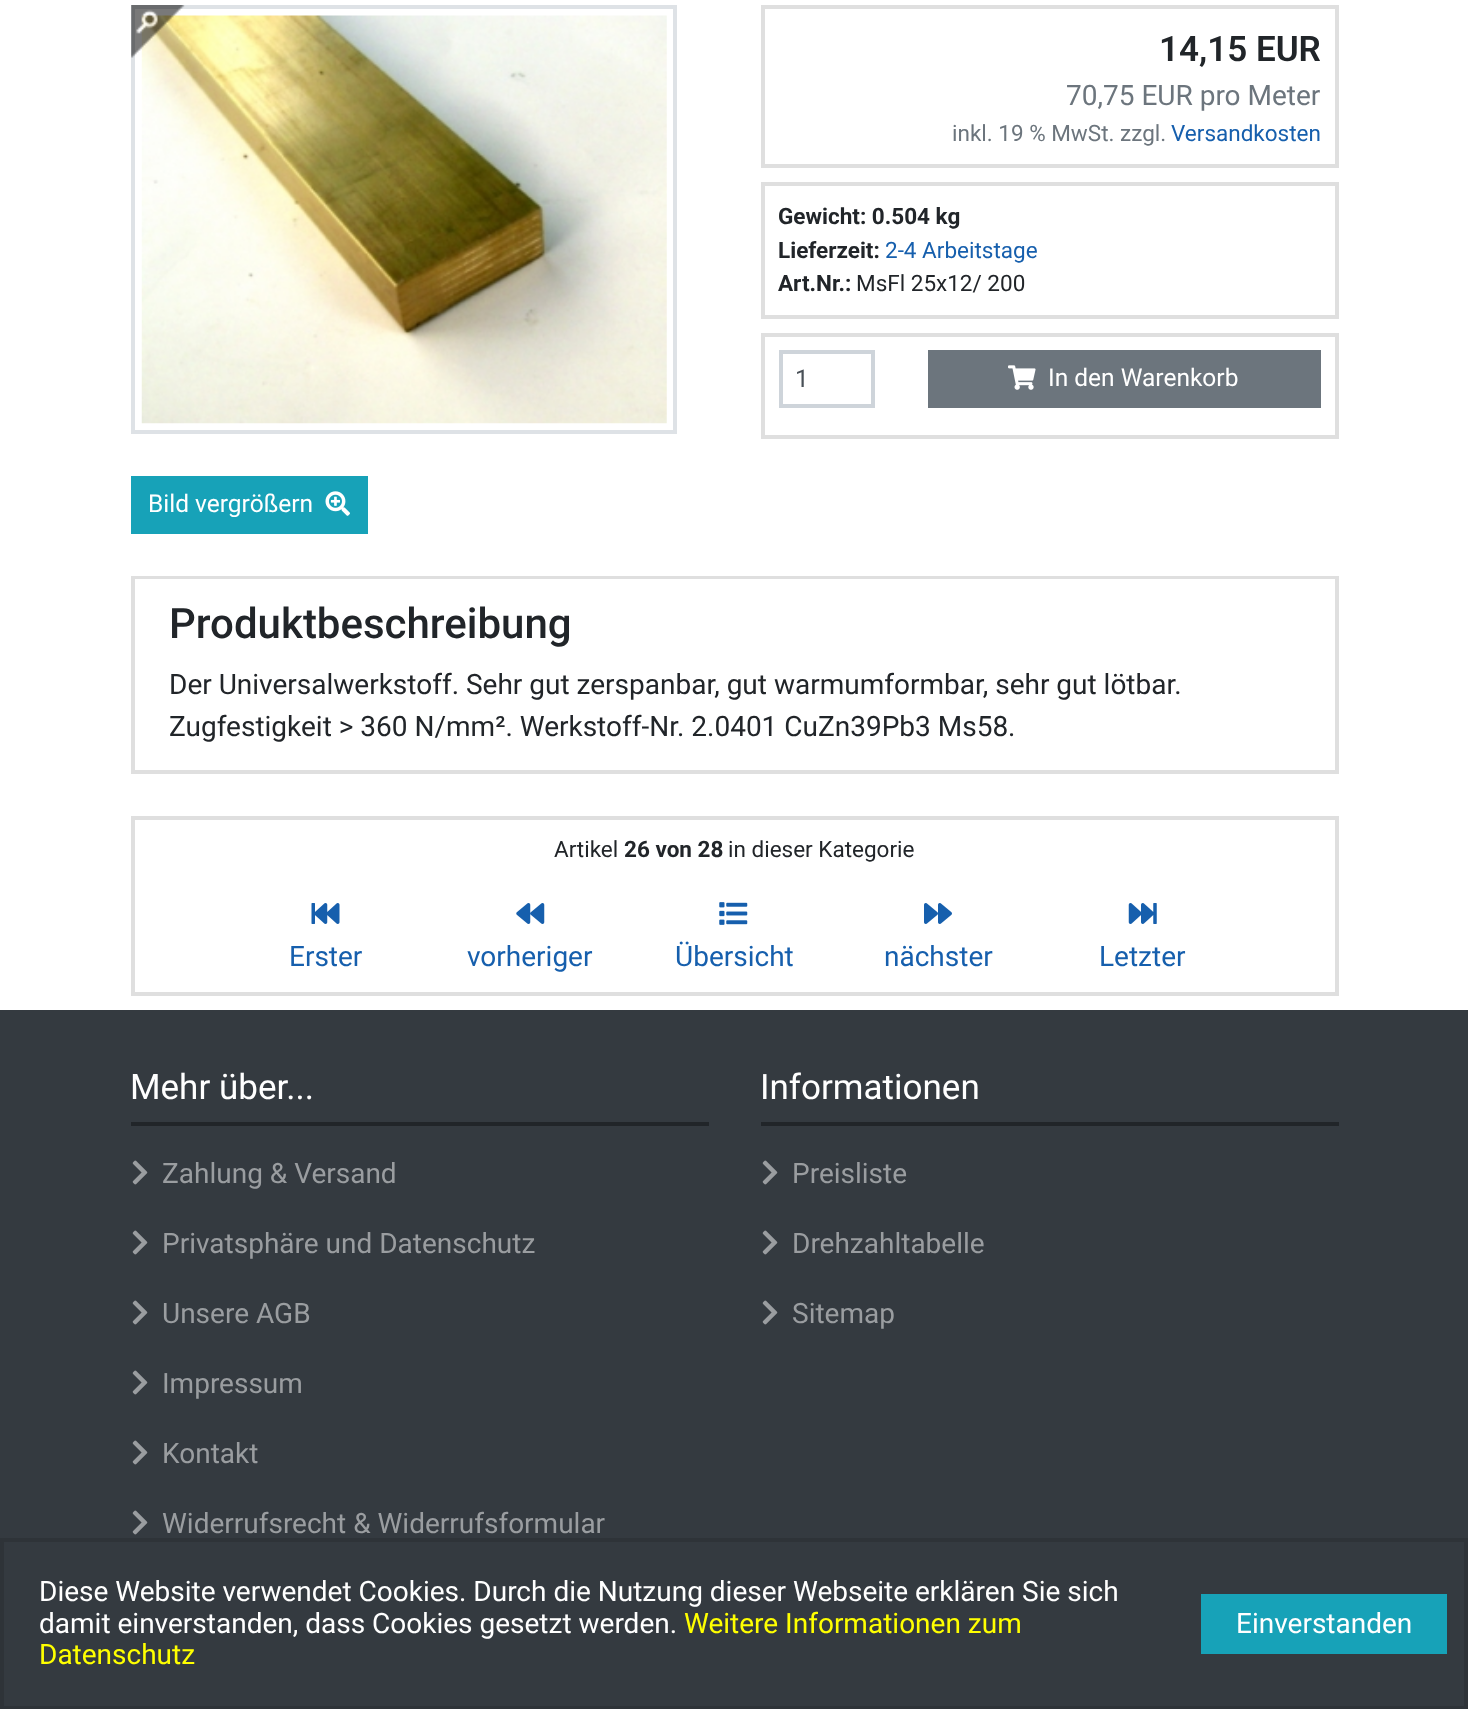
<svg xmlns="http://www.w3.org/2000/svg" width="1468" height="1709">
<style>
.a{font:600 35px Roboto;fill:#212529}
.b{font:28px Roboto;fill:#6c757d}
.c{font:22.5px Roboto;fill:#6c757d}
.d{font:22.5px Roboto;fill:#165fad}
.e{font:bold 22.5px Roboto;fill:#212529}
.f{font:22.5px Roboto;fill:#212529}
.g{font:24.5px Roboto;fill:#495057}
.h{font:24.5px Roboto;fill:#fff}
.i{font:500 42px Roboto;fill:#212529}
.j{font:28px Roboto;fill:#212529}
.k{font:28px Roboto;fill:#165fad}
.l{font:35px Roboto;fill:#fff}
.m{font:28px Roboto;fill:#9a9da0}
.n{font:28px Roboto;fill:#fff}
.o{font:28px Roboto;fill:#ff0}
</style>
<rect width="100%" height="100%" fill="#fff"/>
<path fill="none" stroke="#dfdfdf" stroke-width="4" d="M763 7h574v159H763z"/>
<path fill="none" stroke="#dfdfdf" stroke-width="4" d="M763 184h574v133H763z"/>
<path fill="none" stroke="#dfdfdf" stroke-width="4" d="M763 335h574v102H763z"/>
<path fill="none" stroke="#ced4da" stroke-width="4" d="M781 352h92v54H781z"/>
<path fill="#6c757d" d="M928 350h393v58H928z"/>
<image href="1.png" x="1008" y="365" width="28" height="25"/>
<path fill="none" stroke="#dee2e6" stroke-width="4" d="M133 7h542v425H133z"/>
<image href="3.png" x="141" y="15" width="526" height="409"/>
<image href="2.png" x="131" y="5" width="54" height="53"/>
<path fill="#17a2b8" d="M131 476h237v58H131z"/>
<image href="4.png" x="325" y="491" width="25" height="25"/>
<path fill="none" stroke="#dfdfdf" stroke-width="4" d="M133 578h1204v194H133z"/>
<path fill="#fff" d="M135 579h1200v1H135z"/>
<path fill="none" stroke="#dfdfdf" stroke-width="4" d="M133 818h1204v176H133z"/>
<image href="5.png" x="311" y="903" width="29" height="21"/>
<image href="6.png" x="516" y="903" width="29" height="21"/>
<image href="7.png" x="719" y="902" width="29" height="23"/>
<image href="8.png" x="924" y="903" width="28" height="21"/>
<image href="9.png" x="1128" y="903" width="29" height="21"/>
<path fill="#343a40" d="M0 1010h1468v528H0z"/>
<path fill="#212529" d="M131 1122h578v4H131z"/>
<image href="10.png" x="132" y="1160" width="16" height="25"/>
<image href="10.png" x="132" y="1230" width="16" height="25"/>
<image href="10.png" x="132" y="1300" width="16" height="25"/>
<image href="10.png" x="132" y="1370" width="16" height="25"/>
<image href="10.png" x="132" y="1440" width="16" height="25"/>
<image href="10.png" x="132" y="1510" width="16" height="25"/>
<path fill="#212529" d="M761 1122h578v4H761z"/>
<image href="10.png" x="762" y="1160" width="16" height="25"/>
<image href="10.png" x="762" y="1230" width="16" height="25"/>
<image href="10.png" x="762" y="1300" width="16" height="25"/>
<path fill="#343a40" stroke="#2e3338" stroke-width="4" d="M2 1540h1464v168H2z"/>
<path fill="#17a2b8" d="M1201 1594h246v60H1201z"/>
<text class="a" x="1159" y="61">14,15 EUR</text>
<text class="b" x="1066" y="105">70,75 EUR pro Meter</text>
<text class="c" x="952" y="141">inkl. 19 % MwSt. zzgl.</text>
<text class="d" x="1171" y="141">Versandkosten</text>
<text class="e" x="778" y="224">Gewicht: 0.504 kg</text>
<text class="e" x="778" y="258">Lieferzeit:</text>
<text class="d" x="885" y="258">2-4 Arbeitstage</text>
<text class="e" x="778" y="291">Art.Nr.:</text>
<text class="f" x="856" y="291">MsFl 25x12/ 200</text>
<text class="g" x="795" y="387">1</text>
<text class="h" x="1048" y="386">In den Warenkorb</text>
<text class="h" x="148" y="512">Bild vergrößern</text>
<text class="i" x="169" y="638">Produktbeschreibung</text>
<text class="j" x="169" y="694">Der Universalwerkstoff. Sehr gut zerspanbar, gut warmumformbar, sehr gut lötbar.</text>
<text class="j" x="169" y="736">Zugfestigkeit &gt; 360 N/mm². Werkstoff-Nr. 2.0401 CuZn39Pb3 Ms58.</text>
<text class="f" x="554" y="857">Artikel</text>
<text class="e" x="624" y="857">26 von 28</text>
<text class="f" x="728" y="857">in dieser Kategorie</text>
<text class="k" x="289" y="966">Erster</text>
<text class="k" x="467" y="966">vorheriger</text>
<text class="k" x="675" y="966">Übersicht</text>
<text class="k" x="884" y="966">nächster</text>
<text class="k" x="1099" y="966">Letzter</text>
<text class="l" x="130" y="1099">Mehr über...</text>
<text class="m" x="162" y="1183">Zahlung &amp; Versand</text>
<text class="m" x="162" y="1253">Privatsphäre und Datenschutz</text>
<text class="m" x="162" y="1323">Unsere AGB</text>
<text class="m" x="162" y="1393">Impressum</text>
<text class="m" x="162" y="1463">Kontakt</text>
<text class="m" x="162" y="1533">Widerrufsrecht &amp; Widerrufsformular</text>
<text class="l" x="760" y="1099">Informationen</text>
<text class="m" x="792" y="1183">Preisliste</text>
<text class="m" x="792" y="1253">Drehzahltabelle</text>
<text class="m" x="792" y="1323">Sitemap</text>
<text class="n" x="39" y="1601">Diese Website verwendet Cookies. Durch die Nutzung dieser Webseite erklären Sie sich</text>
<text class="n" x="39" y="1633">damit einverstanden, dass Cookies gesetzt werden.</text>
<text class="o" x="684" y="1633">Weitere Informationen zum</text>
<text class="o" x="39" y="1664">Datenschutz</text>
<text class="n" x="1236" y="1633">Einverstanden</text>
</svg>
